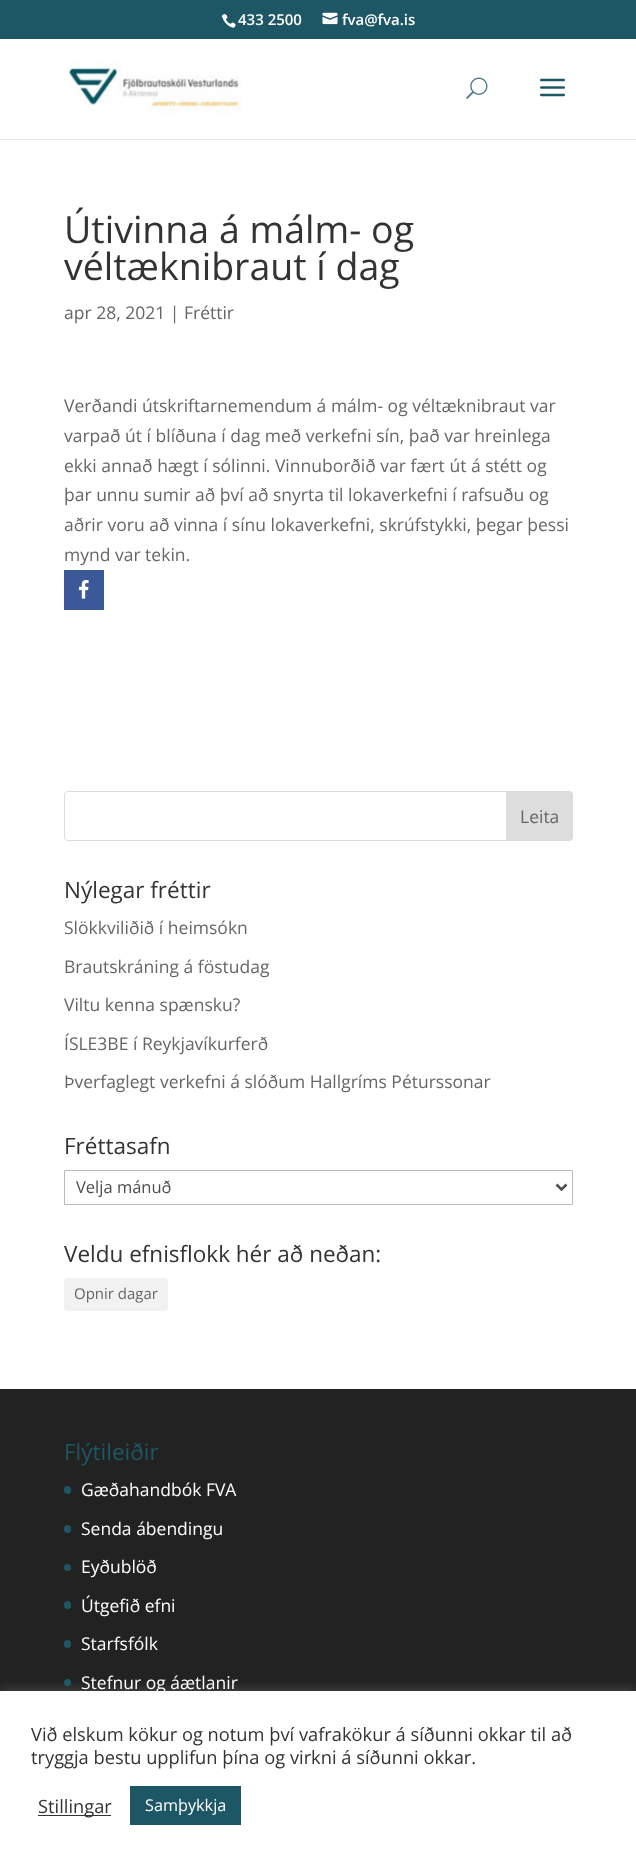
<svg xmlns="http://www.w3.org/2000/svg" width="636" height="1862">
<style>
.a{font:600 15px Open Sans;fill:#fff}
.b{font:37.5px Open Sans;fill:#333}
.c{font:17.5px Open Sans;fill:#666}
.d{font:22.5px Open Sans;fill:#333}
.e{font:16.5px Open Sans;fill:#4e4e4e}
.f{font:15px Open Sans;fill:#666}
.g{font:22.5px Open Sans;fill:#1d5765}
.h{font:17.5px Open Sans;fill:#fff}
.i{font:18.3px Open Sans;fill:#333}
.j{font:16.25px Open Sans;fill:#fff}
</style>
<rect width="100%" height="100%" fill="#fff"/>
<path fill="#1d5765" d="M0 0h636v39H0z"/>
<image href="1.png" x="221" y="14" width="15" height="14"/>
<image href="2.png" x="322" y="12" width="16" height="13"/>
<path fill="#e6e6e6" d="M0 139h636v1H0z"/>
<image href="3.png" x="68" y="61" width="174" height="55"/>
<image href="4.png" x="466" y="77" width="22" height="22"/>
<image href="5.png" x="540" y="78" width="25" height="19"/>
<path fill="#3b5998" d="M64 570h40v40H64z"/>
<image href="6.png" x="78" y="580" width="11" height="19"/>
<rect fill="none" stroke="#ddd" x="64.5" y="791.5" width="508" height="49" rx="3.5"/>
<path fill="#ddd" stroke="#ddd" d="M506.5 791.5h62.5c2 0 3.5 1.5 3.5 3.5v42c0 2-1.5 3.5-3.5 3.5h-62.5z"/>
<path fill="none" stroke="#bbb" d="M64.5 1170.5h508v34H64.5z"/>
<path fill="none" stroke="#4e4e4e" stroke-width="2.5" d="M556.5 1184.5l5 5l5-5"/>
<rect fill="#f2f2f2" x="64" y="1278" width="104" height="33" rx="4"/>
<path fill="#222" d="M0 1389h636v302H0z"/>
<rect fill="#1d5765" x="64" y="1486" width="7" height="8" rx="3.5"/>
<rect fill="#1d5765" x="64" y="1525" width="7" height="8" rx="3.5"/>
<circle fill="#1d5765" cx="67.5" cy="1567.5" r="3.5"/>
<rect fill="#1d5765" x="64" y="1601" width="7" height="8" rx="3.5"/>
<rect fill="#1d5765" x="64" y="1640" width="7" height="8" rx="3.5"/>
<circle fill="#1d5765" cx="67.5" cy="1682.5" r="3.5"/>
<path fill="#acabab4d" filter="blur(6px)" d="M0 1690h636v171H0z"/>
<path fill="#fff" d="M0 1691h636v171H0z"/>
<path fill="#333" d="M38 1815h73v1H38z"/>
<path fill="#1d5765" d="M130 1786h111v39H130z"/>
<text class="a" x="238" y="25">433 2500</text>
<text class="a" x="342" y="25">fva@fva.is</text>
<text class="b" x="64" y="243">Útivinna á málm- og</text>
<text class="b" x="64" y="280">véltæknibraut í dag</text>
<text class="c" x="64" y="319">apr 28, 2021 | Fréttir</text>
<text class="c" x="64" y="412">Verðandi útskriftarnemendum á málm- og véltæknibraut var</text>
<text class="c" x="64" y="442">varpað út í blíðuna í dag með verkefni sín, það var hreinlega</text>
<text class="c" x="64" y="472">ekki annað hægt í sólinni. Vinnuborðið var fært út á stétt og</text>
<text class="c" x="64" y="501">þar unnu sumir að því að snyrta til lokaverkefni í rafsuðu og</text>
<text class="c" x="64" y="531">aðrir voru að vinna í sínu lokaverkefni, skrúfstykki, þegar þessi</text>
<text class="c" x="64" y="561">mynd var tekin.</text>
<text class="c" x="520" y="823">Leita</text>
<text class="d" x="64" y="898">Nýlegar fréttir</text>
<text class="c" x="64" y="934">Slökkviliðið í heimsókn</text>
<text class="c" x="64" y="973">Brautskráning á föstudag</text>
<text class="c" x="64" y="1011">Viltu kenna spænsku?</text>
<text class="c" x="64" y="1050">ÍSLE3BE í Reykjavíkurferð</text>
<text class="c" x="64" y="1088">Þverfaglegt verkefni á slóðum Hallgríms Péturssonar</text>
<text class="d" x="64" y="1154">Fréttasafn</text>
<text class="e" x="76" y="1193">Velja mánuð</text>
<text class="d" x="64" y="1262">Veldu efnisflokk hér að neðan:</text>
<text class="f" x="74" y="1299">Opnir dagar</text>
<text class="g" x="64" y="1460">Flýtileiðir</text>
<text class="h" x="81" y="1496">Gæðahandbók FVA</text>
<text class="h" x="81" y="1535">Senda ábendingu</text>
<text class="h" x="81" y="1573">Eyðublöð</text>
<text class="h" x="81" y="1612">Útgefið efni</text>
<text class="h" x="81" y="1650">Starfsfólk</text>
<text class="h" x="81" y="1689">Stefnur og áætlanir</text>
<text class="i" x="31" y="1741">Við elskum kökur og notum því vafrakökur á síðunni okkar til að</text>
<text class="i" x="31" y="1764">tryggja bestu upplifun þína og virkni á síðunni okkar.</text>
<text class="i" x="38" y="1813">Stillingar</text>
<text class="j" x="145" y="1811">Samþykkja</text>
</svg>
